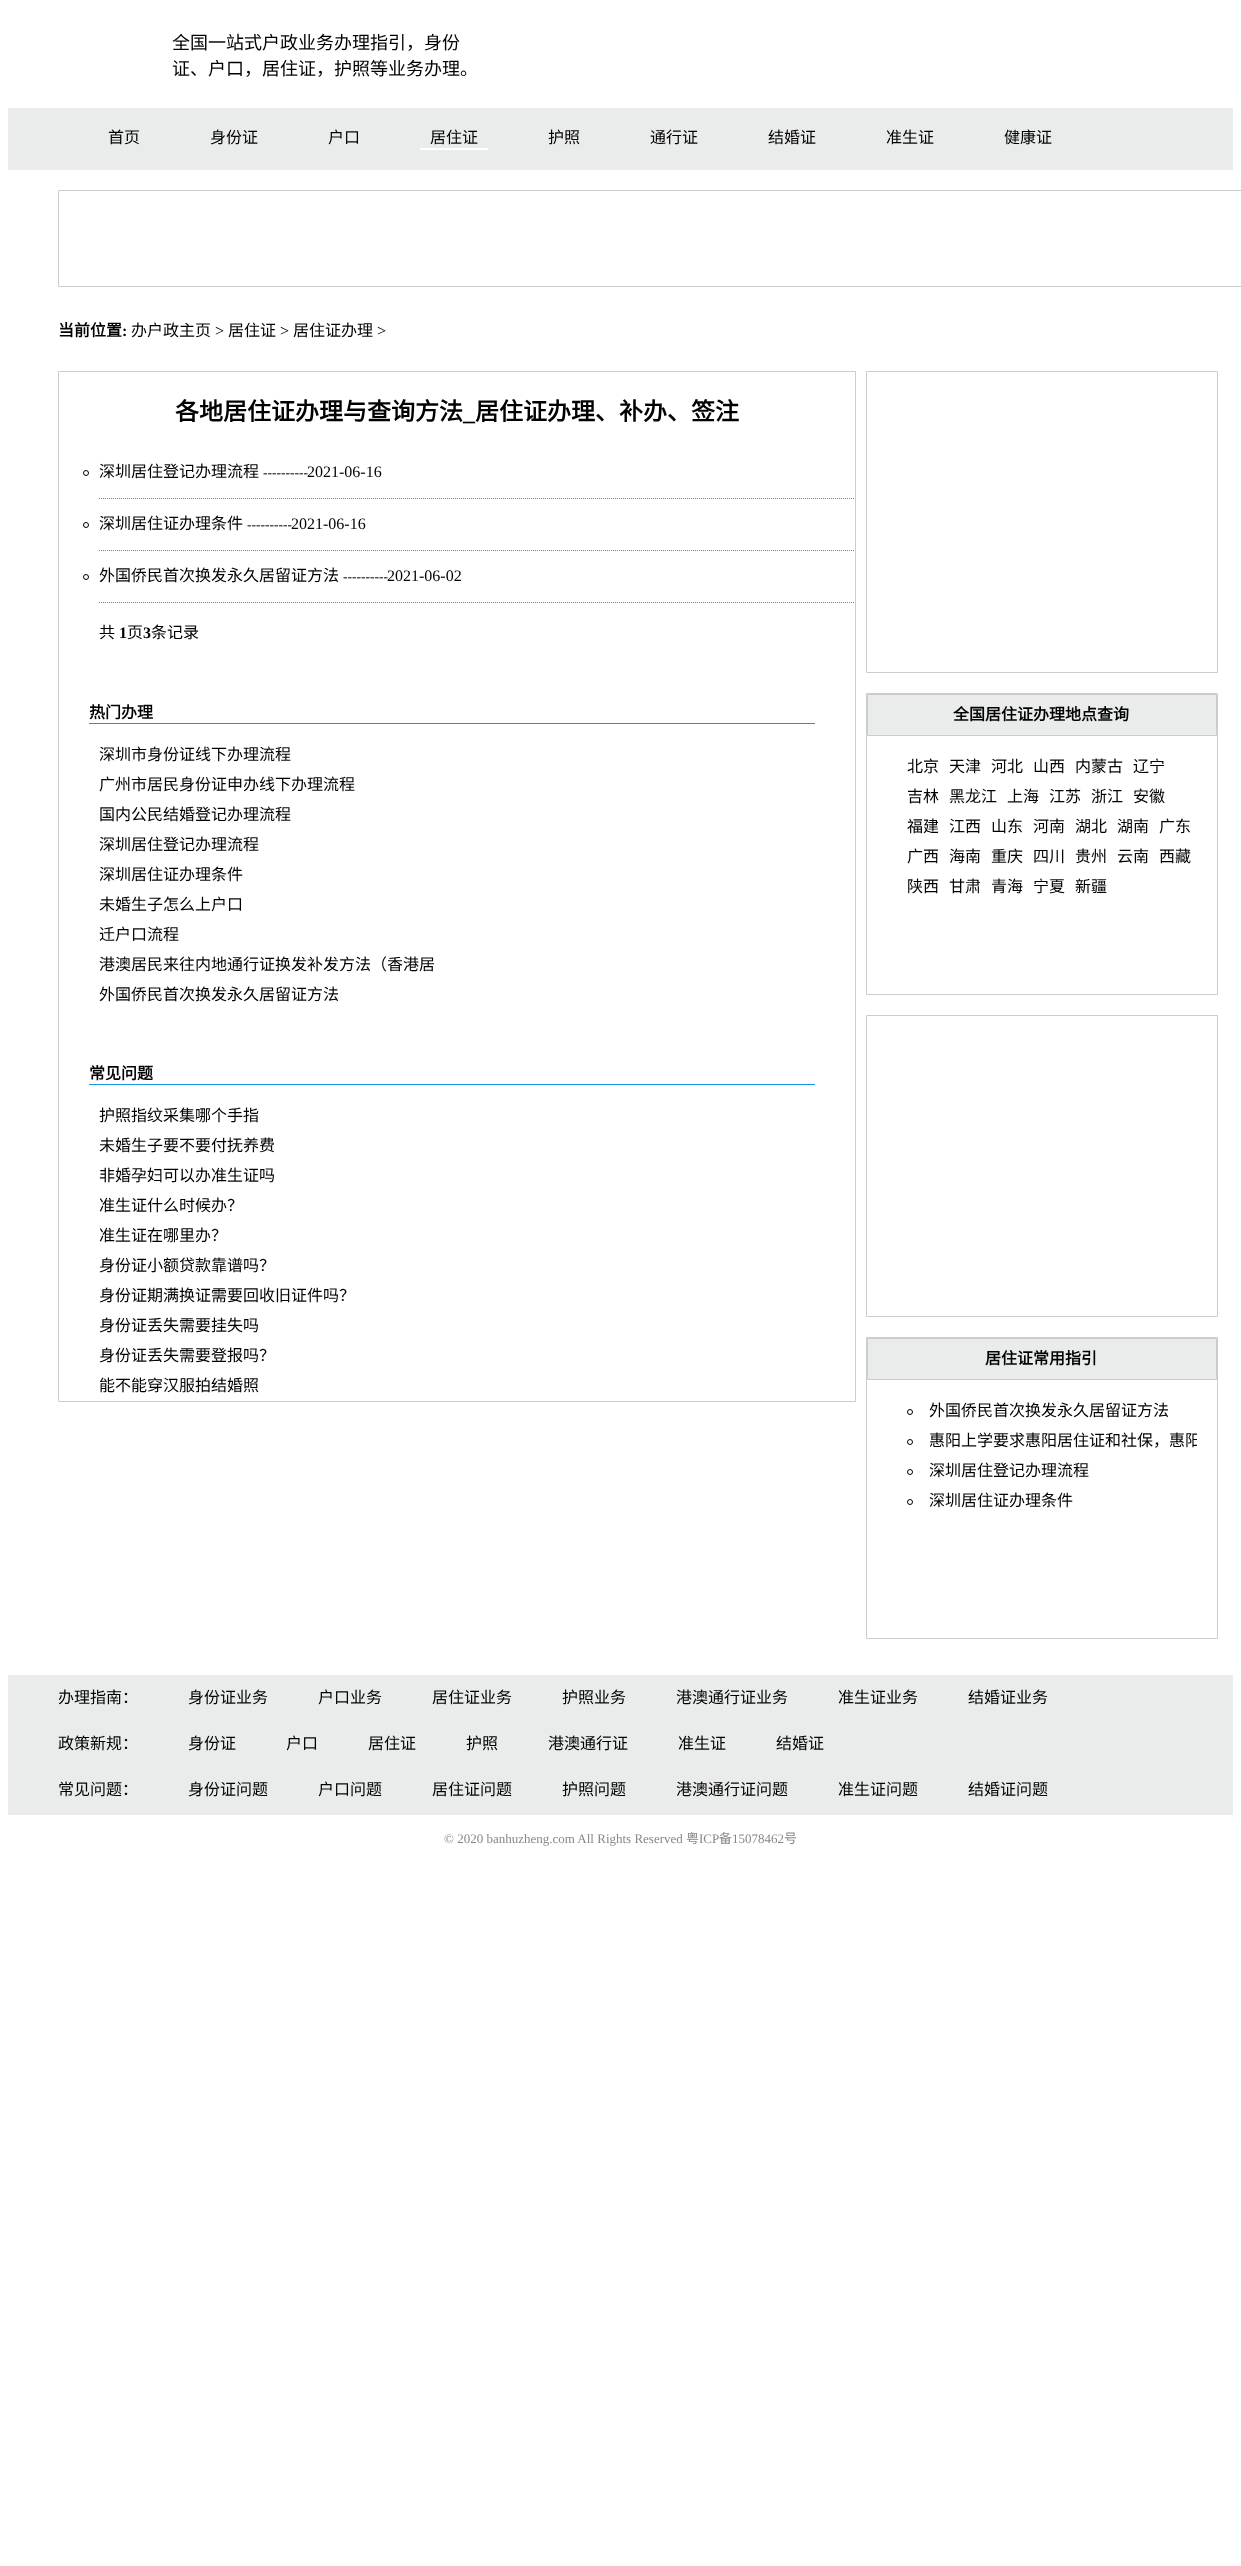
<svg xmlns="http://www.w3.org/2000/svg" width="1241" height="2566">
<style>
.a{font:18px Noto Sans CJK SC;fill:#000}
.b{font:16px Noto Sans CJK SC;fill:#000}
.c{font:bold 16px Noto Sans CJK SC;fill:#000}
.d{font:bold 16px Liberation Serif;fill:#000}
.e{font:16px Liberation Serif;fill:#000}
.f{font:bold 24px Noto Sans CJK SC;fill:#000}
.g{font:bold 24px Liberation Serif;fill:#000}
.h{font:13.5px Liberation Serif;fill:#000}
.i{font:13px Liberation Serif;fill:#888}
.j{font:13px Noto Sans CJK SC;fill:#888}
</style>
<defs>
<clipPath id="clip1"><path d="M907 1426h290v30H907z"/></clipPath>
</defs>
<rect width="100%" height="100%" fill="#fff"/>
<path fill="#eaebeb" d="M8 108h1225v62H8z"/>
<path fill="#fff" d="M420 148h68v2H420z"/>
<path fill="none" stroke="#ccc" d="M58.5 190.5h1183v96H58.5z"/>
<path fill="none" stroke="#ccc" d="M58.5 371.5h797v1030H58.5z"/>
<path fill="none" stroke="#808080" stroke-dasharray="1 1" d="M99 498.5h756"/>
<circle fill="none" stroke="#000" cx="86" cy="473" r="2.5"/>
<path fill="none" stroke="#808080" stroke-dasharray="1 1" d="M99 550.5h756"/>
<circle fill="none" stroke="#000" cx="86" cy="525" r="2.5"/>
<path fill="none" stroke="#808080" stroke-dasharray="1 1" d="M99 602.5h756"/>
<circle fill="none" stroke="#000" cx="86" cy="577" r="2.5"/>
<path fill="#1896e6" d="M89 723h726v1H89z"/>
<path fill="#1896e6" d="M89 1084h726v1H89z"/>
<path fill="none" stroke="#ccc" d="M866.5 371.5h351v301H866.5z"/>
<path fill="none" stroke="#ccc" d="M866.5 693.5h351v301H866.5z"/>
<path fill="#eaebeb" stroke="#ccc" d="M867.5 694.5h349v41H867.5z"/>
<path fill="none" stroke="#ccc" d="M866.5 1015.5h351v301H866.5z"/>
<path fill="none" stroke="#ccc" d="M866.5 1337.5h351v301H866.5z"/>
<path fill="#eaebeb" stroke="#ccc" d="M867.5 1338.5h349v41H867.5z"/>
<circle fill="none" stroke="#000" cx="910" cy="1412" r="2.5"/>
<circle fill="none" stroke="#000" cx="910" cy="1442" r="2.5"/>
<circle fill="none" stroke="#000" cx="910" cy="1472" r="2.5"/>
<circle fill="none" stroke="#000" cx="910" cy="1502" r="2.5"/>
<path fill="#eaebeb" d="M8 1675h1225v140H8z"/>
<text class="a" x="172" y="49">全国一站式户政业务办理指引，身份</text>
<text class="a" x="172" y="75">证、户口，居住证，护照等业务办理。</text>
<text class="b" x="108" y="143">首页</text>
<text class="b" x="210" y="143">身份证</text>
<text class="b" x="328" y="143">户口</text>
<text class="b" x="430" y="143">居住证</text>
<text class="b" x="548" y="143">护照</text>
<text class="b" x="650" y="143">通行证</text>
<text class="b" x="768" y="143">结婚证</text>
<text class="b" x="886" y="143">准生证</text>
<text class="b" x="1004" y="143">健康证</text>
<text class="c" x="58" y="336">当前位置</text>
<text class="d" x="122" y="336">:</text>
<text class="b" x="131" y="336">办户政主页</text>
<text class="e" x="215" y="336">&gt;</text>
<text class="b" x="228" y="336">居住证</text>
<text class="e" x="280" y="336">&gt;</text>
<text class="b" x="293" y="336">居住证办理</text>
<text class="e" x="377" y="336">&gt;</text>
<text class="f" x="175" y="420">各地居住证办理与查询方法</text>
<text class="f" x="475" y="420">居住证办理、补办、签注</text>
<text class="g" x="463" y="420">_</text>
<text class="b" x="99" y="477">深圳居住登记办理流程</text>
<text class="h" x="263" y="477">----------</text>
<text class="e" x="307" y="477">2021-06-16</text>
<text class="b" x="99" y="529">深圳居住证办理条件</text>
<text class="h" x="247" y="529">----------</text>
<text class="e" x="291" y="529">2021-06-16</text>
<text class="b" x="99" y="581">外国侨民首次换发永久居留证方法</text>
<text class="h" x="343" y="581">----------</text>
<text class="e" x="387" y="581">2021-06-02</text>
<text class="b" x="99" y="638">共</text>
<text class="d" x="119" y="638">1</text>
<text class="b" x="127" y="638">页</text>
<text class="d" x="143" y="638">3</text>
<text class="b" x="151" y="638">条记录</text>
<text class="c" x="89" y="718">热门办理</text>
<text class="b" x="99" y="760">深圳市身份证线下办理流程</text>
<text class="b" x="99" y="790">广州市居民身份证申办线下办理流程</text>
<text class="b" x="99" y="820">国内公民结婚登记办理流程</text>
<text class="b" x="99" y="850">深圳居住登记办理流程</text>
<text class="b" x="99" y="880">深圳居住证办理条件</text>
<text class="b" x="99" y="910">未婚生子怎么上户口</text>
<text class="b" x="99" y="940">迁户口流程</text>
<text class="b" x="99" y="970">港澳居民来往内地通行证换发补发方法（香港居</text>
<text class="b" x="99" y="1000">外国侨民首次换发永久居留证方法</text>
<text class="c" x="89" y="1079">常见问题</text>
<text class="b" x="99" y="1121">护照指纹采集哪个手指</text>
<text class="b" x="99" y="1151">未婚生子要不要付抚养费</text>
<text class="b" x="99" y="1181">非婚孕妇可以办准生证吗</text>
<text class="b" x="99" y="1211">准生证什么时候办？</text>
<text class="b" x="99" y="1241">准生证在哪里办？</text>
<text class="b" x="99" y="1271">身份证小额贷款靠谱吗？</text>
<text class="b" x="99" y="1301">身份证期满换证需要回收旧证件吗？</text>
<text class="b" x="99" y="1331">身份证丢失需要挂失吗</text>
<text class="b" x="99" y="1361">身份证丢失需要登报吗？</text>
<text class="b" x="99" y="1391">能不能穿汉服拍结婚照</text>
<text class="c" x="953" y="720">全国居住证办理地点查询</text>
<text class="b" x="907" y="772">北京</text>
<text class="b" x="949" y="772">天津</text>
<text class="b" x="991" y="772">河北</text>
<text class="b" x="1033" y="772">山西</text>
<text class="b" x="1075" y="772">内蒙古</text>
<text class="b" x="1133" y="772">辽宁</text>
<text class="b" x="907" y="802">吉林</text>
<text class="b" x="949" y="802">黑龙江</text>
<text class="b" x="1007" y="802">上海</text>
<text class="b" x="1049" y="802">江苏</text>
<text class="b" x="1091" y="802">浙江</text>
<text class="b" x="1133" y="802">安徽</text>
<text class="b" x="907" y="832">福建</text>
<text class="b" x="949" y="832">江西</text>
<text class="b" x="991" y="832">山东</text>
<text class="b" x="1033" y="832">河南</text>
<text class="b" x="1075" y="832">湖北</text>
<text class="b" x="1117" y="832">湖南</text>
<text class="b" x="1159" y="832">广东</text>
<text class="b" x="907" y="862">广西</text>
<text class="b" x="949" y="862">海南</text>
<text class="b" x="991" y="862">重庆</text>
<text class="b" x="1033" y="862">四川</text>
<text class="b" x="1075" y="862">贵州</text>
<text class="b" x="1117" y="862">云南</text>
<text class="b" x="1159" y="862">西藏</text>
<text class="b" x="907" y="892">陕西</text>
<text class="b" x="949" y="892">甘肃</text>
<text class="b" x="991" y="892">青海</text>
<text class="b" x="1033" y="892">宁夏</text>
<text class="b" x="1075" y="892">新疆</text>
<text class="c" x="985" y="1364">居住证常用指引</text>
<text class="b" x="929" y="1416">外国侨民首次换发永久居留证方法</text>
<g clip-path="url(#clip1)">
<text class="b" x="929" y="1446">惠阳上学要求惠阳居住证和社保，惠阳</text>
</g>
<text class="b" x="929" y="1476">深圳居住登记办理流程</text>
<text class="b" x="929" y="1506">深圳居住证办理条件</text>
<text class="b" x="58" y="1703">办理指南：</text>
<text class="b" x="188" y="1703">身份证业务</text>
<text class="b" x="318" y="1703">户口业务</text>
<text class="b" x="432" y="1703">居住证业务</text>
<text class="b" x="562" y="1703">护照业务</text>
<text class="b" x="676" y="1703">港澳通行证业务</text>
<text class="b" x="838" y="1703">准生证业务</text>
<text class="b" x="968" y="1703">结婚证业务</text>
<text class="b" x="58" y="1749">政策新规：</text>
<text class="b" x="188" y="1749">身份证</text>
<text class="b" x="286" y="1749">户口</text>
<text class="b" x="368" y="1749">居住证</text>
<text class="b" x="466" y="1749">护照</text>
<text class="b" x="548" y="1749">港澳通行证</text>
<text class="b" x="678" y="1749">准生证</text>
<text class="b" x="776" y="1749">结婚证</text>
<text class="b" x="58" y="1795">常见问题：</text>
<text class="b" x="188" y="1795">身份证问题</text>
<text class="b" x="318" y="1795">户口问题</text>
<text class="b" x="432" y="1795">居住证问题</text>
<text class="b" x="562" y="1795">护照问题</text>
<text class="b" x="676" y="1795">港澳通行证问题</text>
<text class="b" x="838" y="1795">准生证问题</text>
<text class="b" x="968" y="1795">结婚证问题</text>
<text class="i" x="444" y="1843">© 2020 banhuzheng.com All Rights Reserved</text>
<text class="j" x="686" y="1843">粤</text>
<text class="i" x="699" y="1843">ICP</text>
<text class="j" x="719" y="1843">备</text>
<text class="i" x="732" y="1843">15078462</text>
<text class="j" x="784" y="1843">号</text>
</svg>
